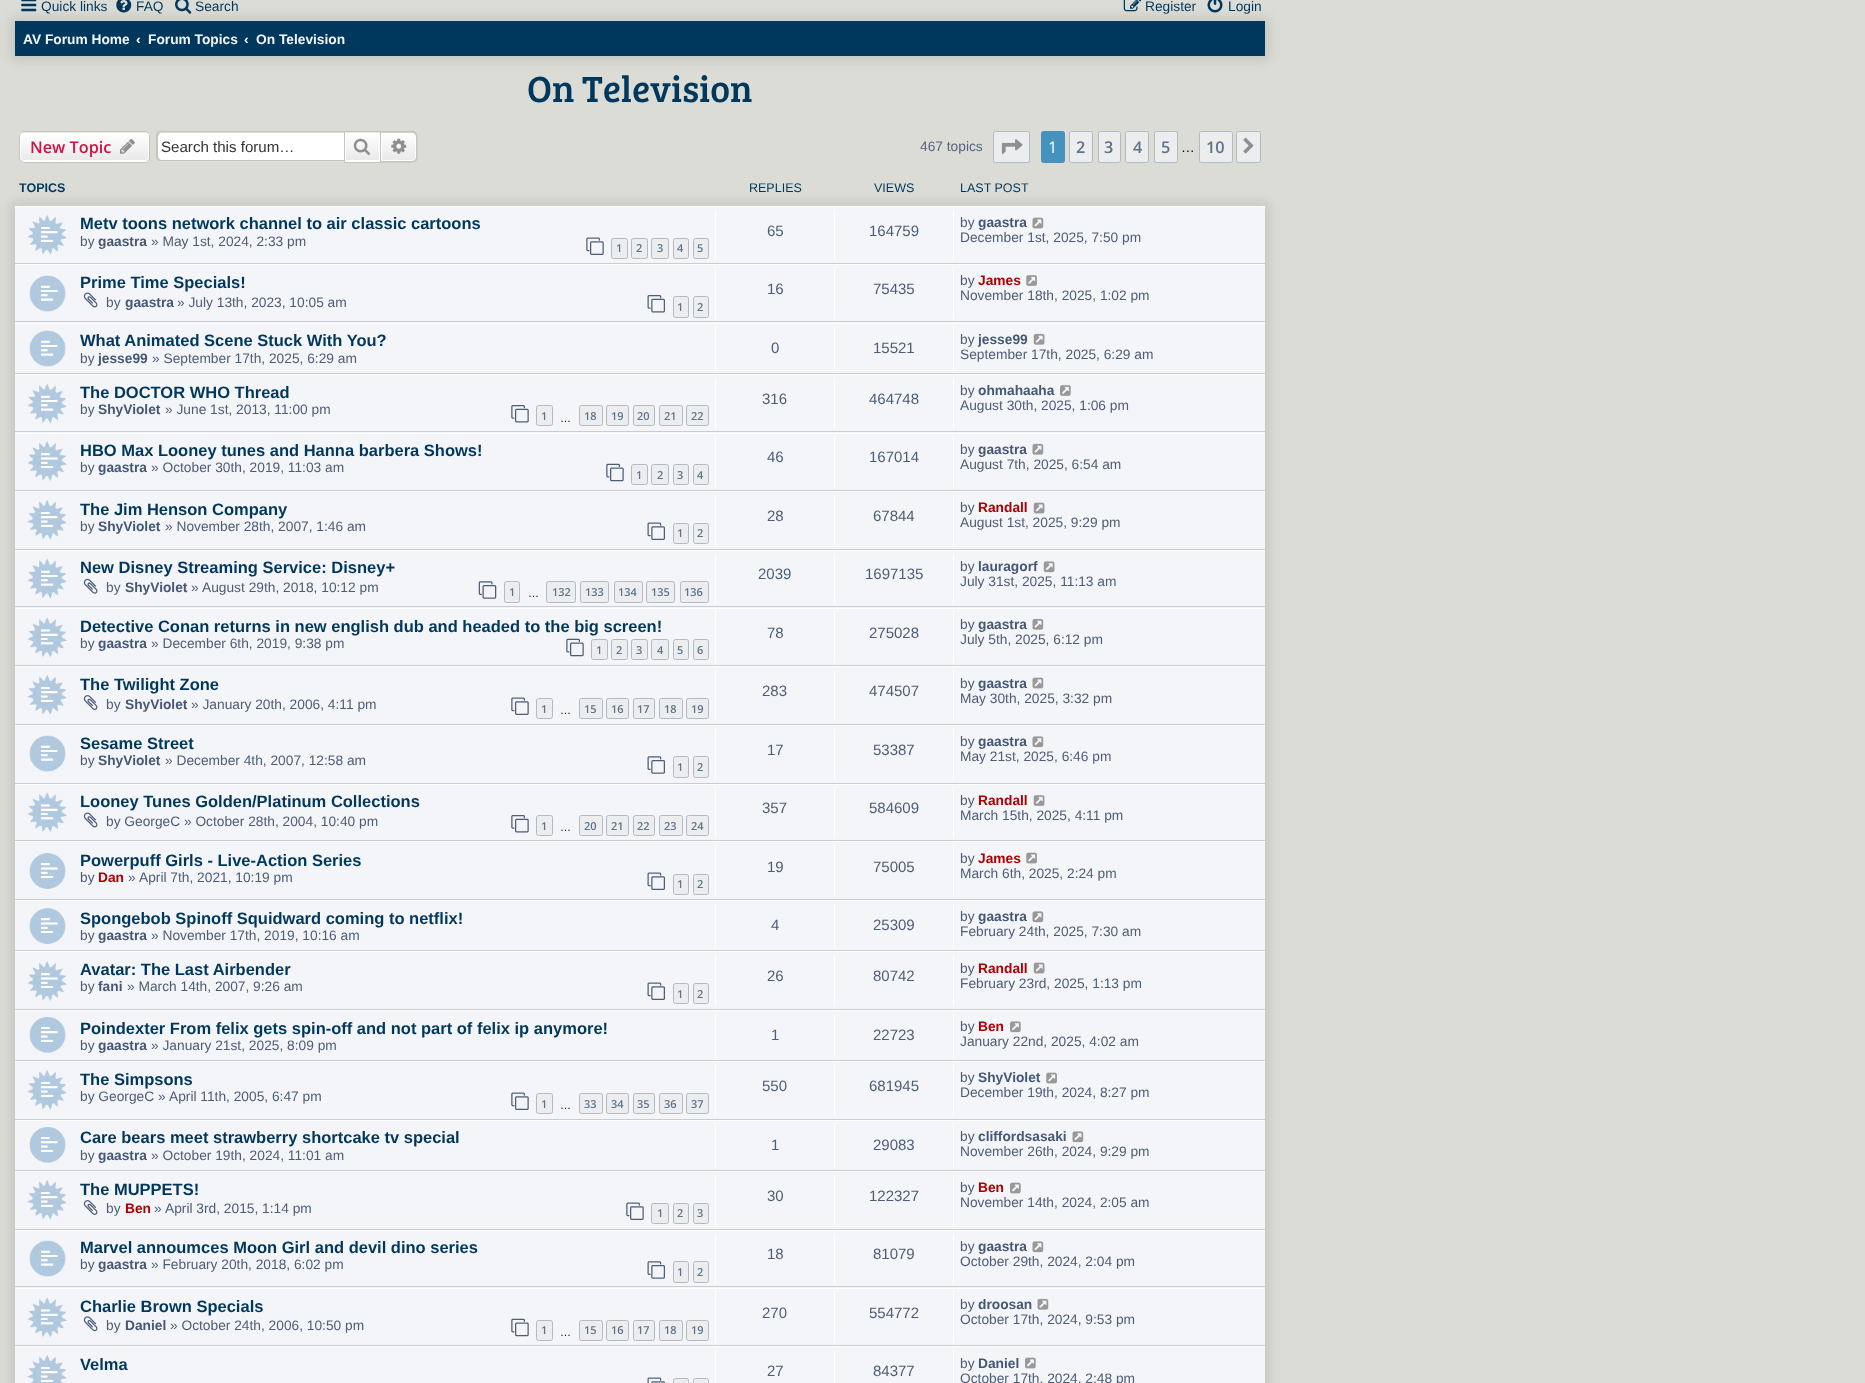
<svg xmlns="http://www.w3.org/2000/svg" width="1865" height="1383">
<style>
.a{font:13.75px Liberation Sans;fill:#00385d}
.b{font:bold 13.75px Liberation Sans;fill:#f4f5f8}
.c{font:bold 13.75px Liberation Sans;fill:#fff}
.d{font:37.5px Bree Serif;fill:#00385d}
.e{font:600 16.25px Open Sans;fill:#d31141}
.f{font:15.1px Liberation Sans;fill:#333}
.g{font:13.75px Liberation Sans;fill:#536482}
.h{font:16.25px Open Sans;fill:#fff}
.i{font:600 16.25px Open Sans;fill:#5c758c}
.j{font:13.75px Liberation Sans;fill:#000}
.k{font:bold 12.5px Liberation Sans;fill:#00385d}
.l{font:12.5px Liberation Sans;fill:#00385d}
.m{font:bold 16.5px Liberation Sans;fill:#00385d}
.n{font:13.75px Liberation Sans;fill:#4c5d77}
.o{font:bold 13.75px Liberation Sans;fill:#445775}
.p{font:600 11px Open Sans;fill:#5c758c}
.q{font:15px Liberation Sans;fill:#4c5d77}
.r{font:bold 13.75px Liberation Sans;fill:#a00}
.s{font:11px Liberation Sans;fill:#000}
</style>
<defs>
<clipPath id="clip1"><rect x="19" y="131" width="131" height="32" rx="5"/></clipPath>
<linearGradient id="g1" gradientUnits="userSpaceOnUse" x1="84" y1="104" x2="84" y2="133"><stop offset="0" stop-color="#fff"/><stop offset="1" stop-color="#e9e9e9"/></linearGradient>
<linearGradient id="g2" gradientUnits="userSpaceOnUse" x1="84" y1="133" x2="84" y2="161"><stop offset="0" stop-color="#fff"/><stop offset="1" stop-color="#e9e9e9"/></linearGradient>
<linearGradient id="g3" gradientUnits="userSpaceOnUse" x1="84" y1="161" x2="84" y2="190"><stop offset="0" stop-color="#fff"/><stop offset="1" stop-color="#e9e9e9"/></linearGradient>
<linearGradient id="g4" gradientUnits="userSpaceOnUse" x1="363" y1="133" x2="363" y2="161"><stop offset="0" stop-color="#fff"/><stop offset="1" stop-color="#e9e9e9"/></linearGradient>
<linearGradient id="g5" gradientUnits="userSpaceOnUse" x1="363" y1="161" x2="363" y2="190"><stop offset="0" stop-color="#fff"/><stop offset="1" stop-color="#e9e9e9"/></linearGradient>
<linearGradient id="g6" gradientUnits="userSpaceOnUse" x1="399" y1="133" x2="399" y2="161"><stop offset="0" stop-color="#fff"/><stop offset="1" stop-color="#e9e9e9"/></linearGradient>
</defs>
<rect width="100%" height="100%" fill="#dcdcd6"/>
<path fill="#0000001a" filter="blur(6px)" d="M11 18h1258v42H11z"/>
<image href="1.png" x="21" y="0" width="16" height="12"/>
<image href="2.png" x="116" y="0" width="16" height="13"/>
<image href="3.png" x="175" y="0" width="17" height="14"/>
<image href="4.png" x="1123" y="0" width="19" height="12"/>
<image href="5.png" x="1207" y="0" width="16" height="13"/>
<path fill="#00385d" d="M15 21h1250v35H15z"/>
<g clip-path="url(#clip1)">
<path fill="url(#g1)" d="M19 131h131v2H19z"/>
<path fill="url(#g2)" d="M19 133h131v28H19z"/>
<path fill="url(#g3)" d="M19 161h131v2H19z"/>
</g>
<rect fill="none" stroke="#fff" x="20.5" y="133.5" width="128" height="27" rx="3.5"/>
<rect fill="none" stroke="#c7c3bf" x="19.5" y="131.5" width="130" height="31" rx="4.5"/>
<image href="6.png" x="120" y="139" width="15" height="15"/>
<path fill="#fff" d="M162 133h182v27h-182c-2 0-4-2-4-4v-19c0-2 2-4 4-4z"/>
<path fill="#c7c3bf" fill-rule="evenodd" d="M161 131h183v30h-183c-3 0-5-2-5-5v-20c0-3 2-5 5-5zm0 1h183v28h-183c-2 0-3-2-3-4v-20c0-2 1-4 3-4z"/>
<path fill="#e9e9e9" d="M345 132h35v1H345z"/>
<path fill="url(#g4)" d="M346 134h33v26H346z"/>
<path fill="url(#g5)" d="M344 161h37v1H344z"/>
<path fill="none" stroke="#fff" d="M345.5 133.5h34v27H345.5z"/>
<path fill="none" stroke="#c7c3bf" d="M344.5 131.5h36v31H344.5z"/>
<image href="7.png" x="353" y="138" width="17" height="17"/>
<path fill="url(#g6)" stroke="#fff" d="M381.5 133.5h30.5c2 0 3.5 1.5 3.5 3.5v20c0 2-1.5 3.5-3.5 3.5h-30.5z"/>
<path fill="#c7c3bf" fill-rule="evenodd" d="M381 131h31.5c3 0 5 2.5 5 5v21.5c0 3-2 5-5 5h-31.5zm0 1.5h31.5c2 0 3.5 1.5 3.5 3.5v21.5c0 2-1.5 3.5-3.5 3.5h-31.5z"/>
<image href="8.png" x="391" y="138" width="16" height="16"/>
<rect fill="#ecedee" stroke="#b4bac0" x="993.5" y="131.5" width="36" height="31" rx="2"/>
<image href="9.png" x="1001" y="139" width="22" height="16"/>
<rect fill="#4692bf" stroke="#4692bf" x="1041.5" y="131.5" width="23" height="31" rx="2"/>
<rect fill="#ecedee" stroke="#b4bac0" x="1069.5" y="131.5" width="23" height="31" rx="2"/>
<rect fill="#ecedee" stroke="#b4bac0" x="1098.5" y="131.5" width="22" height="31" rx="2"/>
<rect fill="#ecedee" stroke="#b4bac0" x="1125.5" y="131.5" width="23" height="31" rx="2"/>
<rect fill="#ecedee" stroke="#b4bac0" x="1154.5" y="131.5" width="23" height="31" rx="2"/>
<rect fill="#ecedee" stroke="#b4bac0" x="1199.5" y="131.5" width="33" height="31" rx="2"/>
<rect fill="#ecedee" stroke="#b4bac0" x="1236.5" y="131.5" width="24" height="31" rx="2"/>
<image href="10.png" x="1243" y="137" width="11" height="17"/>
<path fill="#0000001a" filter="blur(6px)" d="M11 203h1258v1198H11z"/>
<path fill="#f4f5f8" d="M15 207h1250v56H15z"/>
<path fill="#fff" d="M15 206h1250v1H15z"/>
<path fill="#ccc" d="M15 263h1250v1H15z"/>
<image href="11.png" x="27" y="214" width="40" height="41"/>
<image href="12.png" x="586" y="237" width="18" height="18"/>
<rect fill="#ecedee" stroke="#b4bac0" x="611.5" y="238.5" width="16" height="20" rx="2"/>
<rect fill="#ecedee" stroke="#b4bac0" x="631.5" y="238.5" width="16" height="20" rx="2"/>
<rect fill="#ecedee" stroke="#b4bac0" x="651.5" y="238.5" width="17" height="20" rx="2"/>
<rect fill="#ecedee" stroke="#b4bac0" x="673.5" y="238.5" width="15" height="20" rx="2"/>
<rect fill="#ecedee" stroke="#b4bac0" x="693.5" y="238.5" width="15" height="20" rx="2"/>
<path fill="#fff" d="M715 210h1v50H715z"/>
<path fill="#fff" d="M834 210h1v50H834z"/>
<path fill="#fff" d="M953 210h1v50H953z"/>
<image href="13.png" x="1032" y="217" width="12" height="12"/>
<path fill="#f4f5f8" d="M15 265h1250v58H15z"/>
<path fill="#fff" d="M15 264h1250v1H15z"/>
<path fill="#ccc" d="M15 321h1250v1H15z"/>
<image href="14.png" x="29" y="275" width="37" height="37"/>
<image href="15.png" x="83" y="292" width="15" height="16"/>
<image href="16.png" x="647" y="295" width="18" height="18"/>
<rect fill="#ecedee" stroke="#b4bac0" x="673.5" y="296.5" width="15" height="21" rx="2"/>
<rect fill="#ecedee" stroke="#b4bac0" x="693.5" y="296.5" width="15" height="21" rx="2"/>
<path fill="#fff" d="M715 268h1v51H715z"/>
<path fill="#fff" d="M834 268h1v51H834z"/>
<path fill="#fff" d="M953 268h1v51H953z"/>
<image href="17.png" x="1026" y="275" width="11" height="11"/>
<path fill="#f4f5f8" d="M15 324h1250v49H15z"/>
<path fill="#fff" d="M15 323h1250v1H15z"/>
<path fill="#ccc" d="M15 373h1250v1H15z"/>
<image href="18.png" x="29" y="330" width="37" height="37"/>
<path fill="#fff" d="M715 326h1v44H715z"/>
<path fill="#fff" d="M834 326h1v44H834z"/>
<path fill="#fff" d="M953 326h1v44H953z"/>
<image href="19.png" x="1033" y="333" width="12" height="12"/>
<path fill="#f4f5f8" d="M15 375h1250v58H15z"/>
<path fill="#fff" d="M15 374h1250v1H15z"/>
<path fill="#ccc" d="M15 431h1250v1H15z"/>
<image href="20.png" x="27" y="383" width="40" height="41"/>
<image href="21.png" x="511" y="405" width="18" height="18"/>
<rect fill="#ecedee" stroke="#b4bac0" x="536.5" y="405.5" width="16" height="20" rx="2"/>
<rect fill="#ecedee" stroke="#b4bac0" x="579.5" y="405.5" width="23" height="20" rx="2"/>
<rect fill="#ecedee" stroke="#b4bac0" x="606.5" y="405.5" width="22" height="20" rx="2"/>
<rect fill="#ecedee" stroke="#b4bac0" x="633.5" y="405.5" width="21" height="20" rx="2"/>
<rect fill="#ecedee" stroke="#b4bac0" x="659.5" y="405.5" width="23" height="20" rx="2"/>
<rect fill="#ecedee" stroke="#b4bac0" x="686.5" y="405.5" width="22" height="20" rx="2"/>
<path fill="#fff" d="M715 378h1v51H715z"/>
<path fill="#fff" d="M834 378h1v51H834z"/>
<path fill="#fff" d="M953 378h1v51H953z"/>
<image href="22.png" x="1060" y="385" width="11" height="11"/>
<path fill="#f4f5f8" d="M15 434h1250v56H15z"/>
<path fill="#fff" d="M15 433h1250v1H15z"/>
<path fill="#ccc" d="M15 490h1250v1H15z"/>
<image href="23.png" x="27" y="441" width="40" height="40"/>
<image href="24.png" x="606" y="463" width="18" height="19"/>
<rect fill="#ecedee" stroke="#b4bac0" x="631.5" y="464.5" width="16" height="20" rx="2"/>
<rect fill="#ecedee" stroke="#b4bac0" x="651.5" y="464.5" width="17" height="20" rx="2"/>
<rect fill="#ecedee" stroke="#b4bac0" x="673.5" y="464.5" width="15" height="20" rx="2"/>
<rect fill="#ecedee" stroke="#b4bac0" x="693.5" y="464.5" width="15" height="20" rx="2"/>
<path fill="#fff" d="M715 436h1v52H715z"/>
<path fill="#fff" d="M834 436h1v52H834z"/>
<path fill="#fff" d="M953 436h1v52H953z"/>
<image href="25.png" x="1032" y="443" width="12" height="12"/>
<path fill="#f4f5f8" d="M15 492h1250v57H15z"/>
<path fill="#fff" d="M15 491h1250v1H15z"/>
<path fill="#ccc" d="M15 549h1250v1H15z"/>
<image href="11.png" x="27" y="499" width="40" height="41"/>
<image href="26.png" x="647" y="522" width="18" height="18"/>
<rect fill="#ecedee" stroke="#b4bac0" x="673.5" y="523.5" width="15" height="20" rx="2"/>
<rect fill="#ecedee" stroke="#b4bac0" x="693.5" y="523.5" width="15" height="20" rx="2"/>
<path fill="#fff" d="M715 495h1v51H715z"/>
<path fill="#fff" d="M834 495h1v51H834z"/>
<path fill="#fff" d="M953 495h1v51H953z"/>
<image href="27.png" x="1033" y="502" width="12" height="12"/>
<path fill="#f4f5f8" d="M15 551h1250v57H15z"/>
<path fill="#fff" d="M15 550h1250v1H15z"/>
<path fill="#ccc" d="M15 606h1250v1H15z"/>
<image href="28.png" x="27" y="558" width="40" height="41"/>
<image href="29.png" x="83" y="578" width="15" height="16"/>
<image href="30.png" x="478" y="581" width="19" height="18"/>
<rect fill="#ecedee" stroke="#b4bac0" x="504.5" y="581.5" width="15" height="21" rx="2"/>
<rect fill="#ecedee" stroke="#b4bac0" x="546.5" y="581.5" width="29" height="21" rx="2"/>
<rect fill="#ecedee" stroke="#b4bac0" x="580.5" y="581.5" width="28" height="21" rx="2"/>
<rect fill="#ecedee" stroke="#b4bac0" x="614.5" y="581.5" width="28" height="21" rx="2"/>
<rect fill="#ecedee" stroke="#b4bac0" x="646.5" y="581.5" width="28" height="21" rx="2"/>
<rect fill="#ecedee" stroke="#b4bac0" x="680.5" y="581.5" width="28" height="21" rx="2"/>
<path fill="#fff" d="M715 554h1v50H715z"/>
<path fill="#fff" d="M834 554h1v50H834z"/>
<path fill="#fff" d="M953 554h1v50H953z"/>
<image href="31.png" x="1043" y="561" width="12" height="12"/>
<path fill="#f4f5f8" d="M15 609h1250v56H15z"/>
<path fill="#fff" d="M15 608h1250v1H15z"/>
<path fill="#ccc" d="M15 665h1250v1H15z"/>
<image href="32.png" x="27" y="617" width="40" height="41"/>
<image href="24.png" x="566" y="638" width="18" height="19"/>
<rect fill="#ecedee" stroke="#b4bac0" x="591.5" y="639.5" width="16" height="20" rx="2"/>
<rect fill="#ecedee" stroke="#b4bac0" x="611.5" y="639.5" width="16" height="20" rx="2"/>
<rect fill="#ecedee" stroke="#b4bac0" x="631.5" y="639.5" width="16" height="20" rx="2"/>
<rect fill="#ecedee" stroke="#b4bac0" x="651.5" y="639.5" width="17" height="20" rx="2"/>
<rect fill="#ecedee" stroke="#b4bac0" x="673.5" y="639.5" width="15" height="20" rx="2"/>
<rect fill="#ecedee" stroke="#b4bac0" x="693.5" y="639.5" width="15" height="20" rx="2"/>
<path fill="#fff" d="M715 611h1v52H715z"/>
<path fill="#fff" d="M834 611h1v52H834z"/>
<path fill="#fff" d="M953 611h1v52H953z"/>
<image href="25.png" x="1032" y="618" width="12" height="12"/>
<path fill="#f4f5f8" d="M15 667h1250v57H15z"/>
<path fill="#fff" d="M15 666h1250v1H15z"/>
<path fill="#ccc" d="M15 724h1250v1H15z"/>
<image href="33.png" x="27" y="674" width="40" height="41"/>
<image href="34.png" x="83" y="695" width="15" height="15"/>
<image href="12.png" x="511" y="697" width="18" height="18"/>
<rect fill="#ecedee" stroke="#b4bac0" x="536.5" y="698.5" width="16" height="20" rx="2"/>
<rect fill="#ecedee" stroke="#b4bac0" x="579.5" y="698.5" width="23" height="20" rx="2"/>
<rect fill="#ecedee" stroke="#b4bac0" x="606.5" y="698.5" width="22" height="20" rx="2"/>
<rect fill="#ecedee" stroke="#b4bac0" x="633.5" y="698.5" width="21" height="20" rx="2"/>
<rect fill="#ecedee" stroke="#b4bac0" x="659.5" y="698.5" width="23" height="20" rx="2"/>
<rect fill="#ecedee" stroke="#b4bac0" x="686.5" y="698.5" width="22" height="20" rx="2"/>
<path fill="#fff" d="M715 670h1v51H715z"/>
<path fill="#fff" d="M834 670h1v51H834z"/>
<path fill="#fff" d="M953 670h1v51H953z"/>
<image href="13.png" x="1032" y="677" width="12" height="12"/>
<path fill="#f4f5f8" d="M15 726h1250v57H15z"/>
<path fill="#fff" d="M15 725h1250v1H15z"/>
<path fill="#ccc" d="M15 783h1250v1H15z"/>
<image href="18.png" x="29" y="735" width="37" height="37"/>
<image href="35.png" x="647" y="756" width="18" height="18"/>
<rect fill="#ecedee" stroke="#b4bac0" x="673.5" y="756.5" width="15" height="21" rx="2"/>
<rect fill="#ecedee" stroke="#b4bac0" x="693.5" y="756.5" width="15" height="21" rx="2"/>
<path fill="#fff" d="M715 729h1v51H715z"/>
<path fill="#fff" d="M834 729h1v51H834z"/>
<path fill="#fff" d="M953 729h1v51H953z"/>
<image href="36.png" x="1032" y="736" width="12" height="12"/>
<path fill="#f4f5f8" d="M15 785h1250v55H15z"/>
<path fill="#fff" d="M15 784h1250v1H15z"/>
<path fill="#ccc" d="M15 840h1250v1H15z"/>
<image href="32.png" x="27" y="792" width="40" height="41"/>
<image href="15.png" x="83" y="812" width="15" height="16"/>
<image href="21.png" x="511" y="815" width="18" height="18"/>
<rect fill="#ecedee" stroke="#b4bac0" x="536.5" y="815.5" width="16" height="20" rx="2"/>
<rect fill="#ecedee" stroke="#b4bac0" x="579.5" y="815.5" width="23" height="20" rx="2"/>
<rect fill="#ecedee" stroke="#b4bac0" x="606.5" y="815.5" width="22" height="20" rx="2"/>
<rect fill="#ecedee" stroke="#b4bac0" x="633.5" y="815.5" width="21" height="20" rx="2"/>
<rect fill="#ecedee" stroke="#b4bac0" x="659.5" y="815.5" width="23" height="20" rx="2"/>
<rect fill="#ecedee" stroke="#b4bac0" x="686.5" y="815.5" width="22" height="20" rx="2"/>
<path fill="#fff" d="M715 788h1v50H715z"/>
<path fill="#fff" d="M834 788h1v50H834z"/>
<path fill="#fff" d="M953 788h1v50H953z"/>
<image href="37.png" x="1033" y="795" width="12" height="11"/>
<path fill="#f4f5f8" d="M15 842h1250v57H15z"/>
<path fill="#fff" d="M15 841h1250v1H15z"/>
<path fill="#ccc" d="M15 899h1250v1H15z"/>
<image href="38.png" x="29" y="853" width="37" height="36"/>
<image href="26.png" x="647" y="872" width="18" height="18"/>
<rect fill="#ecedee" stroke="#b4bac0" x="673.5" y="874.5" width="15" height="20" rx="2"/>
<rect fill="#ecedee" stroke="#b4bac0" x="693.5" y="874.5" width="15" height="20" rx="2"/>
<path fill="#fff" d="M715 845h1v51H715z"/>
<path fill="#fff" d="M834 845h1v51H834z"/>
<path fill="#fff" d="M953 845h1v51H953z"/>
<image href="39.png" x="1026" y="852" width="11" height="12"/>
<path fill="#f4f5f8" d="M15 901h1250v49H15z"/>
<path fill="#fff" d="M15 900h1250v1H15z"/>
<path fill="#ccc" d="M15 950h1250v1H15z"/>
<image href="40.png" x="29" y="908" width="37" height="36"/>
<path fill="#fff" d="M715 904h1v44H715z"/>
<path fill="#fff" d="M834 904h1v44H834z"/>
<path fill="#fff" d="M953 904h1v44H953z"/>
<image href="36.png" x="1032" y="911" width="12" height="12"/>
<path fill="#f4f5f8" d="M15 952h1250v57H15z"/>
<path fill="#fff" d="M15 951h1250v1H15z"/>
<path fill="#ccc" d="M15 1009h1250v1H15z"/>
<image href="41.png" x="27" y="961" width="40" height="40"/>
<image href="26.png" x="647" y="982" width="18" height="18"/>
<rect fill="#ecedee" stroke="#b4bac0" x="673.5" y="983.5" width="15" height="20" rx="2"/>
<rect fill="#ecedee" stroke="#b4bac0" x="693.5" y="983.5" width="15" height="20" rx="2"/>
<path fill="#fff" d="M715 955h1v51H715z"/>
<path fill="#fff" d="M834 955h1v51H834z"/>
<path fill="#fff" d="M953 955h1v51H953z"/>
<image href="27.png" x="1033" y="962" width="12" height="12"/>
<path fill="#f4f5f8" d="M15 1011h1250v49H15z"/>
<path fill="#fff" d="M15 1010h1250v1H15z"/>
<path fill="#ccc" d="M15 1060h1250v1H15z"/>
<image href="42.png" x="29" y="1017" width="37" height="36"/>
<path fill="#fff" d="M715 1014h1v44H715z"/>
<path fill="#fff" d="M834 1014h1v44H834z"/>
<path fill="#fff" d="M953 1014h1v44H953z"/>
<image href="43.png" x="1010" y="1021" width="11" height="12"/>
<path fill="#f4f5f8" d="M15 1062h1250v57H15z"/>
<path fill="#fff" d="M15 1061h1250v1H15z"/>
<path fill="#ccc" d="M15 1119h1250v1H15z"/>
<image href="11.png" x="27" y="1069" width="40" height="41"/>
<image href="12.png" x="511" y="1092" width="18" height="18"/>
<rect fill="#ecedee" stroke="#b4bac0" x="536.5" y="1093.5" width="16" height="20" rx="2"/>
<rect fill="#ecedee" stroke="#b4bac0" x="579.5" y="1093.5" width="23" height="20" rx="2"/>
<rect fill="#ecedee" stroke="#b4bac0" x="606.5" y="1093.5" width="22" height="20" rx="2"/>
<rect fill="#ecedee" stroke="#b4bac0" x="633.5" y="1093.5" width="21" height="20" rx="2"/>
<rect fill="#ecedee" stroke="#b4bac0" x="659.5" y="1093.5" width="23" height="20" rx="2"/>
<rect fill="#ecedee" stroke="#b4bac0" x="686.5" y="1093.5" width="22" height="20" rx="2"/>
<path fill="#fff" d="M715 1065h1v51H715z"/>
<path fill="#fff" d="M834 1065h1v51H834z"/>
<path fill="#fff" d="M953 1065h1v51H953z"/>
<image href="39.png" x="1046" y="1072" width="11" height="12"/>
<path fill="#f4f5f8" d="M15 1121h1250v49H15z"/>
<path fill="#fff" d="M15 1120h1250v1H15z"/>
<path fill="#ccc" d="M15 1170h1250v1H15z"/>
<image href="42.png" x="29" y="1127" width="37" height="36"/>
<path fill="#fff" d="M715 1124h1v44H715z"/>
<path fill="#fff" d="M834 1124h1v44H834z"/>
<path fill="#fff" d="M953 1124h1v44H953z"/>
<image href="36.png" x="1072" y="1131" width="12" height="12"/>
<path fill="#f4f5f8" d="M15 1172h1250v57H15z"/>
<path fill="#fff" d="M15 1171h1250v1H15z"/>
<path fill="#ccc" d="M15 1229h1250v1H15z"/>
<image href="11.png" x="27" y="1179" width="40" height="41"/>
<image href="34.png" x="83" y="1200" width="15" height="15"/>
<image href="12.png" x="626" y="1202" width="18" height="18"/>
<rect fill="#ecedee" stroke="#b4bac0" x="651.5" y="1203.5" width="17" height="20" rx="2"/>
<rect fill="#ecedee" stroke="#b4bac0" x="673.5" y="1203.5" width="15" height="20" rx="2"/>
<rect fill="#ecedee" stroke="#b4bac0" x="693.5" y="1203.5" width="15" height="20" rx="2"/>
<path fill="#fff" d="M715 1175h1v51H715z"/>
<path fill="#fff" d="M834 1175h1v51H834z"/>
<path fill="#fff" d="M953 1175h1v51H953z"/>
<image href="44.png" x="1010" y="1182" width="11" height="12"/>
<path fill="#f4f5f8" d="M15 1231h1250v57H15z"/>
<path fill="#fff" d="M15 1230h1250v1H15z"/>
<path fill="#ccc" d="M15 1286h1250v1H15z"/>
<image href="18.png" x="29" y="1240" width="37" height="37"/>
<image href="35.png" x="647" y="1261" width="18" height="18"/>
<rect fill="#ecedee" stroke="#b4bac0" x="673.5" y="1261.5" width="15" height="21" rx="2"/>
<rect fill="#ecedee" stroke="#b4bac0" x="693.5" y="1261.5" width="15" height="21" rx="2"/>
<path fill="#fff" d="M715 1234h1v50H715z"/>
<path fill="#fff" d="M834 1234h1v50H834z"/>
<path fill="#fff" d="M953 1234h1v50H953z"/>
<image href="36.png" x="1032" y="1241" width="12" height="12"/>
<path fill="#f4f5f8" d="M15 1289h1250v56H15z"/>
<path fill="#fff" d="M15 1288h1250v1H15z"/>
<path fill="#ccc" d="M15 1345h1250v1H15z"/>
<image href="45.png" x="27" y="1297" width="40" height="41"/>
<image href="46.png" x="83" y="1316" width="15" height="16"/>
<image href="24.png" x="511" y="1318" width="18" height="19"/>
<rect fill="#ecedee" stroke="#b4bac0" x="536.5" y="1320.5" width="16" height="20" rx="2"/>
<rect fill="#ecedee" stroke="#b4bac0" x="579.5" y="1320.5" width="23" height="20" rx="2"/>
<rect fill="#ecedee" stroke="#b4bac0" x="606.5" y="1320.5" width="22" height="20" rx="2"/>
<rect fill="#ecedee" stroke="#b4bac0" x="633.5" y="1320.5" width="21" height="20" rx="2"/>
<rect fill="#ecedee" stroke="#b4bac0" x="659.5" y="1320.5" width="23" height="20" rx="2"/>
<rect fill="#ecedee" stroke="#b4bac0" x="686.5" y="1320.5" width="22" height="20" rx="2"/>
<path fill="#fff" d="M715 1291h1v52H715z"/>
<path fill="#fff" d="M834 1291h1v52H834z"/>
<path fill="#fff" d="M953 1291h1v52H953z"/>
<image href="25.png" x="1037" y="1298" width="12" height="12"/>
<path fill="#f4f5f8" d="M15 1347h1250v36H15z"/>
<path fill="#fff" d="M15 1346h1250v1H15z"/>
<image href="47.png" x="27" y="1354" width="40" height="29"/>
<image href="48.png" x="647" y="1377" width="18" height="6"/>
<rect fill="#ecedee" stroke="#b4bac0" x="673.5" y="1378.5" width="15" height="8" rx="2"/>
<rect fill="#ecedee" stroke="#b4bac0" x="693.5" y="1378.5" width="15" height="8" rx="2"/>
<path fill="#fff" d="M715 1350h1v33H715z"/>
<path fill="#fff" d="M834 1350h1v33H834z"/>
<path fill="#fff" d="M953 1350h1v33H953z"/>
<image href="44.png" x="1025" y="1357" width="11" height="12"/>
<text class="a" x="41" y="11">Quick links</text>
<text class="a" x="136" y="11">FAQ</text>
<text class="a" x="195" y="11">Search</text>
<text class="a" x="1145" y="11">Register</text>
<text class="a" x="1228" y="11">Login</text>
<text class="b" x="23" y="44">AV Forum Home</text>
<text class="c" x="136" y="44">‹</text>
<text class="b" x="148" y="44">Forum Topics</text>
<text class="c" x="244" y="44">‹</text>
<text class="b" x="256" y="44">On Television</text>
<text class="d" x="527" y="102">On Television</text>
<text class="e" x="30" y="153">New Topic</text>
<text class="f" x="161" y="152">Search this forum…</text>
<text class="g" x="920" y="151">467 topics</text>
<text class="h" x="1048" y="153">1</text>
<text class="i" x="1076" y="153">2</text>
<text class="i" x="1104" y="153">3</text>
<text class="i" x="1133" y="153">4</text>
<text class="i" x="1161" y="153">5</text>
<text class="j" x="1181" y="152">…</text>
<text class="i" x="1206" y="153">10</text>
<text class="k" x="19" y="192">TOPICS</text>
<text class="l" x="749" y="192">REPLIES</text>
<text class="l" x="874" y="192">VIEWS</text>
<text class="l" x="960" y="192">LAST POST</text>
<text class="m" x="80" y="229">Metv toons network channel to air classic cartoons</text>
<text class="n" x="80" y="246">by</text>
<text class="o" x="98" y="246">gaastra</text>
<text class="n" x="151" y="246">» May 1st, 2024, 2:33 pm</text>
<text class="p" x="616" y="252">1</text>
<text class="p" x="636" y="252">2</text>
<text class="p" x="657" y="252">3</text>
<text class="p" x="677" y="252">4</text>
<text class="p" x="697" y="252">5</text>
<text class="q" x="767" y="236">65</text>
<text class="q" x="869" y="236">164759</text>
<text class="n" x="960" y="227">by</text>
<text class="o" x="978" y="227">gaastra</text>
<text class="n" x="960" y="242">December 1st, 2025, 7:50 pm</text>
<text class="m" x="80" y="288">Prime Time Specials!</text>
<text class="n" x="106" y="307">by</text>
<text class="o" x="125" y="307">gaastra</text>
<text class="n" x="177" y="307">» July 13th, 2023, 10:05 am</text>
<text class="p" x="677" y="311">1</text>
<text class="p" x="697" y="311">2</text>
<text class="q" x="767" y="294">16</text>
<text class="q" x="873" y="294">75435</text>
<text class="n" x="960" y="285">by</text>
<text class="r" x="978" y="285">James</text>
<text class="n" x="960" y="300">November 18th, 2025, 1:02 pm</text>
<text class="m" x="80" y="346">What Animated Scene Stuck With You?</text>
<text class="n" x="80" y="363">by</text>
<text class="o" x="98" y="363">jesse99</text>
<text class="n" x="152" y="363">» September 17th, 2025, 6:29 am</text>
<text class="q" x="771" y="353">0</text>
<text class="q" x="873" y="353">15521</text>
<text class="n" x="960" y="344">by</text>
<text class="o" x="978" y="344">jesse99</text>
<text class="n" x="960" y="359">September 17th, 2025, 6:29 am</text>
<text class="m" x="80" y="398">The DOCTOR WHO Thread</text>
<text class="n" x="80" y="414">by</text>
<text class="o" x="98" y="414">ShyViolet</text>
<text class="n" x="165" y="414">» June 1st, 2013, 11:00 pm</text>
<text class="p" x="541" y="420">1</text>
<text class="p" x="584" y="420">18</text>
<text class="p" x="611" y="420">19</text>
<text class="p" x="637" y="420">20</text>
<text class="p" x="664" y="420">21</text>
<text class="p" x="691" y="420">22</text>
<text class="s" x="560" y="422">…</text>
<text class="q" x="762" y="404">316</text>
<text class="q" x="869" y="404">464748</text>
<text class="n" x="960" y="395">by</text>
<text class="o" x="978" y="395">ohmahaaha</text>
<text class="n" x="960" y="410">August 30th, 2025, 1:06 pm</text>
<text class="m" x="80" y="456">HBO Max Looney tunes and Hanna barbera Shows!</text>
<text class="n" x="80" y="472">by</text>
<text class="o" x="98" y="472">gaastra</text>
<text class="n" x="151" y="472">» October 30th, 2019, 11:03 am</text>
<text class="p" x="636" y="479">1</text>
<text class="p" x="657" y="479">2</text>
<text class="p" x="677" y="479">3</text>
<text class="p" x="697" y="479">4</text>
<text class="q" x="767" y="462">46</text>
<text class="q" x="869" y="462">167014</text>
<text class="n" x="960" y="454">by</text>
<text class="o" x="978" y="454">gaastra</text>
<text class="n" x="960" y="469">August 7th, 2025, 6:54 am</text>
<text class="m" x="80" y="515">The Jim Henson Company</text>
<text class="n" x="80" y="531">by</text>
<text class="o" x="98" y="531">ShyViolet</text>
<text class="n" x="165" y="531">» November 28th, 2007, 1:46 am</text>
<text class="p" x="677" y="537">1</text>
<text class="p" x="697" y="537">2</text>
<text class="q" x="767" y="521">28</text>
<text class="q" x="873" y="521">67844</text>
<text class="n" x="960" y="512">by</text>
<text class="r" x="978" y="512">Randall</text>
<text class="n" x="960" y="527">August 1st, 2025, 9:29 pm</text>
<text class="m" x="80" y="573">New Disney Streaming Service: Disney+</text>
<text class="n" x="106" y="592">by</text>
<text class="o" x="125" y="592">ShyViolet</text>
<text class="n" x="191" y="592">»</text>
<text class="n" x="202" y="592">August 29th, 2018, 10:12 pm</text>
<text class="p" x="509" y="596">1</text>
<text class="s" x="528" y="597">…</text>
<text class="p" x="552" y="596">132</text>
<text class="p" x="585" y="596">133</text>
<text class="p" x="618" y="596">134</text>
<text class="p" x="651" y="596">135</text>
<text class="p" x="684" y="596">136</text>
<text class="q" x="758" y="579">2039</text>
<text class="q" x="865" y="579">1697135</text>
<text class="n" x="960" y="571">by</text>
<text class="o" x="978" y="571">lauragorf</text>
<text class="n" x="960" y="586">July 31st, 2025, 11:13 am</text>
<text class="m" x="80" y="632">Detective Conan returns in new english dub and headed to the big screen!</text>
<text class="n" x="80" y="648">by</text>
<text class="o" x="98" y="648">gaastra</text>
<text class="n" x="151" y="648">» December 6th, 2019, 9:38 pm</text>
<text class="p" x="596" y="654">1</text>
<text class="p" x="616" y="654">2</text>
<text class="p" x="636" y="654">3</text>
<text class="p" x="657" y="654">4</text>
<text class="p" x="677" y="654">5</text>
<text class="p" x="697" y="654">6</text>
<text class="q" x="767" y="638">78</text>
<text class="q" x="869" y="638">275028</text>
<text class="n" x="960" y="629">by</text>
<text class="o" x="978" y="629">gaastra</text>
<text class="n" x="960" y="644">July 5th, 2025, 6:12 pm</text>
<text class="m" x="80" y="690">The Twilight Zone</text>
<text class="n" x="106" y="709">by</text>
<text class="o" x="125" y="709">ShyViolet</text>
<text class="n" x="191" y="709">» January 20th, 2006, 4:11 pm</text>
<text class="p" x="541" y="713">1</text>
<text class="s" x="560" y="714">…</text>
<text class="p" x="584" y="713">15</text>
<text class="p" x="611" y="713">16</text>
<text class="p" x="637" y="713">17</text>
<text class="p" x="664" y="713">18</text>
<text class="p" x="691" y="713">19</text>
<text class="q" x="762" y="696">283</text>
<text class="q" x="869" y="696">474507</text>
<text class="n" x="960" y="688">by</text>
<text class="o" x="978" y="688">gaastra</text>
<text class="n" x="960" y="703">May 30th, 2025, 3:32 pm</text>
<text class="m" x="80" y="749">Sesame Street</text>
<text class="n" x="80" y="765">by</text>
<text class="o" x="98" y="765">ShyViolet</text>
<text class="n" x="165" y="765">» December 4th, 2007, 12:58 am</text>
<text class="p" x="677" y="771">1</text>
<text class="p" x="697" y="771">2</text>
<text class="q" x="767" y="755">17</text>
<text class="q" x="873" y="755">53387</text>
<text class="n" x="960" y="746">by</text>
<text class="o" x="978" y="746">gaastra</text>
<text class="n" x="960" y="761">May 21st, 2025, 6:46 pm</text>
<text class="m" x="80" y="807">Looney Tunes Golden/Platinum Collections</text>
<text class="n" x="106" y="826">by GeorgeC » October 28th, 2004, 10:40 pm</text>
<text class="p" x="541" y="830">1</text>
<text class="s" x="560" y="831">…</text>
<text class="p" x="584" y="830">20</text>
<text class="p" x="611" y="830">21</text>
<text class="p" x="637" y="830">22</text>
<text class="p" x="664" y="830">23</text>
<text class="p" x="691" y="830">24</text>
<text class="q" x="762" y="813">357</text>
<text class="q" x="869" y="813">584609</text>
<text class="n" x="960" y="805">by</text>
<text class="r" x="978" y="805">Randall</text>
<text class="n" x="960" y="820">March 15th, 2025, 4:11 pm</text>
<text class="m" x="80" y="866">Powerpuff Girls - Live-Action Series</text>
<text class="n" x="80" y="882">by</text>
<text class="r" x="98" y="882">Dan</text>
<text class="n" x="128" y="882">»</text>
<text class="n" x="139" y="882">April 7th, 2021, 10:19 pm</text>
<text class="p" x="677" y="888">1</text>
<text class="p" x="697" y="888">2</text>
<text class="q" x="767" y="872">19</text>
<text class="q" x="873" y="872">75005</text>
<text class="n" x="960" y="863">by</text>
<text class="r" x="978" y="863">James</text>
<text class="n" x="960" y="878">March 6th, 2025, 2:24 pm</text>
<text class="m" x="80" y="924">Spongebob Spinoff Squidward coming to netflix!</text>
<text class="n" x="80" y="940">by</text>
<text class="o" x="98" y="940">gaastra</text>
<text class="n" x="151" y="940">» November 17th, 2019, 10:16 am</text>
<text class="q" x="771" y="930">4</text>
<text class="q" x="873" y="930">25309</text>
<text class="n" x="960" y="921">by</text>
<text class="o" x="978" y="921">gaastra</text>
<text class="n" x="960" y="936">February 24th, 2025, 7:30 am</text>
<text class="m" x="80" y="975">Avatar: The Last Airbender</text>
<text class="n" x="80" y="991">by</text>
<text class="o" x="98" y="991">fani</text>
<text class="n" x="127" y="991">» March 14th, 2007, 9:26 am</text>
<text class="p" x="677" y="998">1</text>
<text class="p" x="697" y="998">2</text>
<text class="q" x="767" y="981">26</text>
<text class="q" x="873" y="981">80742</text>
<text class="n" x="960" y="973">by</text>
<text class="r" x="978" y="973">Randall</text>
<text class="n" x="960" y="988">February 23rd, 2025, 1:13 pm</text>
<text class="m" x="80" y="1034">Poindexter From felix gets spin-off and not part of felix ip anymore!</text>
<text class="n" x="80" y="1050">by</text>
<text class="o" x="98" y="1050">gaastra</text>
<text class="n" x="151" y="1050">» January 21st, 2025, 8:09 pm</text>
<text class="q" x="771" y="1040">1</text>
<text class="q" x="873" y="1040">22723</text>
<text class="n" x="960" y="1031">by</text>
<text class="r" x="978" y="1031">Ben</text>
<text class="n" x="960" y="1046">January 22nd, 2025, 4:02 am</text>
<text class="m" x="80" y="1085">The Simpsons</text>
<text class="n" x="80" y="1101">by GeorgeC</text>
<text class="n" x="158" y="1101">»</text>
<text class="n" x="169" y="1101">April 11th, 2005, 6:47 pm</text>
<text class="p" x="541" y="1108">1</text>
<text class="s" x="560" y="1109">…</text>
<text class="p" x="584" y="1108">33</text>
<text class="p" x="611" y="1108">34</text>
<text class="p" x="637" y="1108">35</text>
<text class="p" x="664" y="1108">36</text>
<text class="p" x="691" y="1108">37</text>
<text class="q" x="762" y="1091">550</text>
<text class="q" x="869" y="1091">681945</text>
<text class="n" x="960" y="1082">by</text>
<text class="o" x="978" y="1082">ShyViolet</text>
<text class="n" x="960" y="1097">December 19th, 2024, 8:27 pm</text>
<text class="m" x="80" y="1143">Care bears meet strawberry shortcake tv special</text>
<text class="n" x="80" y="1160">by</text>
<text class="o" x="98" y="1160">gaastra</text>
<text class="n" x="151" y="1160">» October 19th, 2024, 11:01 am</text>
<text class="q" x="771" y="1150">1</text>
<text class="q" x="873" y="1150">29083</text>
<text class="n" x="960" y="1141">by</text>
<text class="o" x="978" y="1141">cliffordsasaki</text>
<text class="n" x="960" y="1156">November 26th, 2024, 9:29 pm</text>
<text class="m" x="80" y="1195">The MUPPETS!</text>
<text class="n" x="106" y="1213">by</text>
<text class="r" x="125" y="1213">Ben</text>
<text class="n" x="154" y="1213">»</text>
<text class="n" x="165" y="1213">April 3rd, 2015, 1:14 pm</text>
<text class="p" x="657" y="1217">1</text>
<text class="p" x="677" y="1217">2</text>
<text class="p" x="697" y="1217">3</text>
<text class="q" x="767" y="1201">30</text>
<text class="q" x="869" y="1201">122327</text>
<text class="n" x="960" y="1192">by</text>
<text class="r" x="978" y="1192">Ben</text>
<text class="n" x="960" y="1207">November 14th, 2024, 2:05 am</text>
<text class="m" x="80" y="1253">Marvel annoumces Moon Girl and devil dino series</text>
<text class="n" x="80" y="1269">by</text>
<text class="o" x="98" y="1269">gaastra</text>
<text class="n" x="151" y="1269">» February 20th, 2018, 6:02 pm</text>
<text class="p" x="677" y="1276">1</text>
<text class="p" x="697" y="1276">2</text>
<text class="q" x="767" y="1259">18</text>
<text class="q" x="873" y="1259">81079</text>
<text class="n" x="960" y="1251">by</text>
<text class="o" x="978" y="1251">gaastra</text>
<text class="n" x="960" y="1266">October 29th, 2024, 2:04 pm</text>
<text class="m" x="80" y="1312">Charlie Brown Specials</text>
<text class="n" x="106" y="1330">by</text>
<text class="o" x="125" y="1330">Daniel</text>
<text class="n" x="170" y="1330">» October 24th, 2006, 10:50 pm</text>
<text class="p" x="541" y="1334">1</text>
<text class="p" x="584" y="1334">15</text>
<text class="p" x="611" y="1334">16</text>
<text class="p" x="637" y="1334">17</text>
<text class="p" x="664" y="1334">18</text>
<text class="p" x="691" y="1334">19</text>
<text class="s" x="560" y="1336">…</text>
<text class="q" x="762" y="1318">270</text>
<text class="q" x="869" y="1318">554772</text>
<text class="n" x="960" y="1309">by</text>
<text class="o" x="978" y="1309">droosan</text>
<text class="n" x="960" y="1324">October 17th, 2024, 9:53 pm</text>
<text class="m" x="80" y="1370">Velma</text>
<text class="q" x="767" y="1376">27</text>
<text class="q" x="873" y="1376">84377</text>
<text class="n" x="960" y="1368">by</text>
<text class="o" x="978" y="1368">Daniel</text>
<text class="n" x="960" y="1383">October 17th, 2024, 2:48 pm</text>
</svg>
